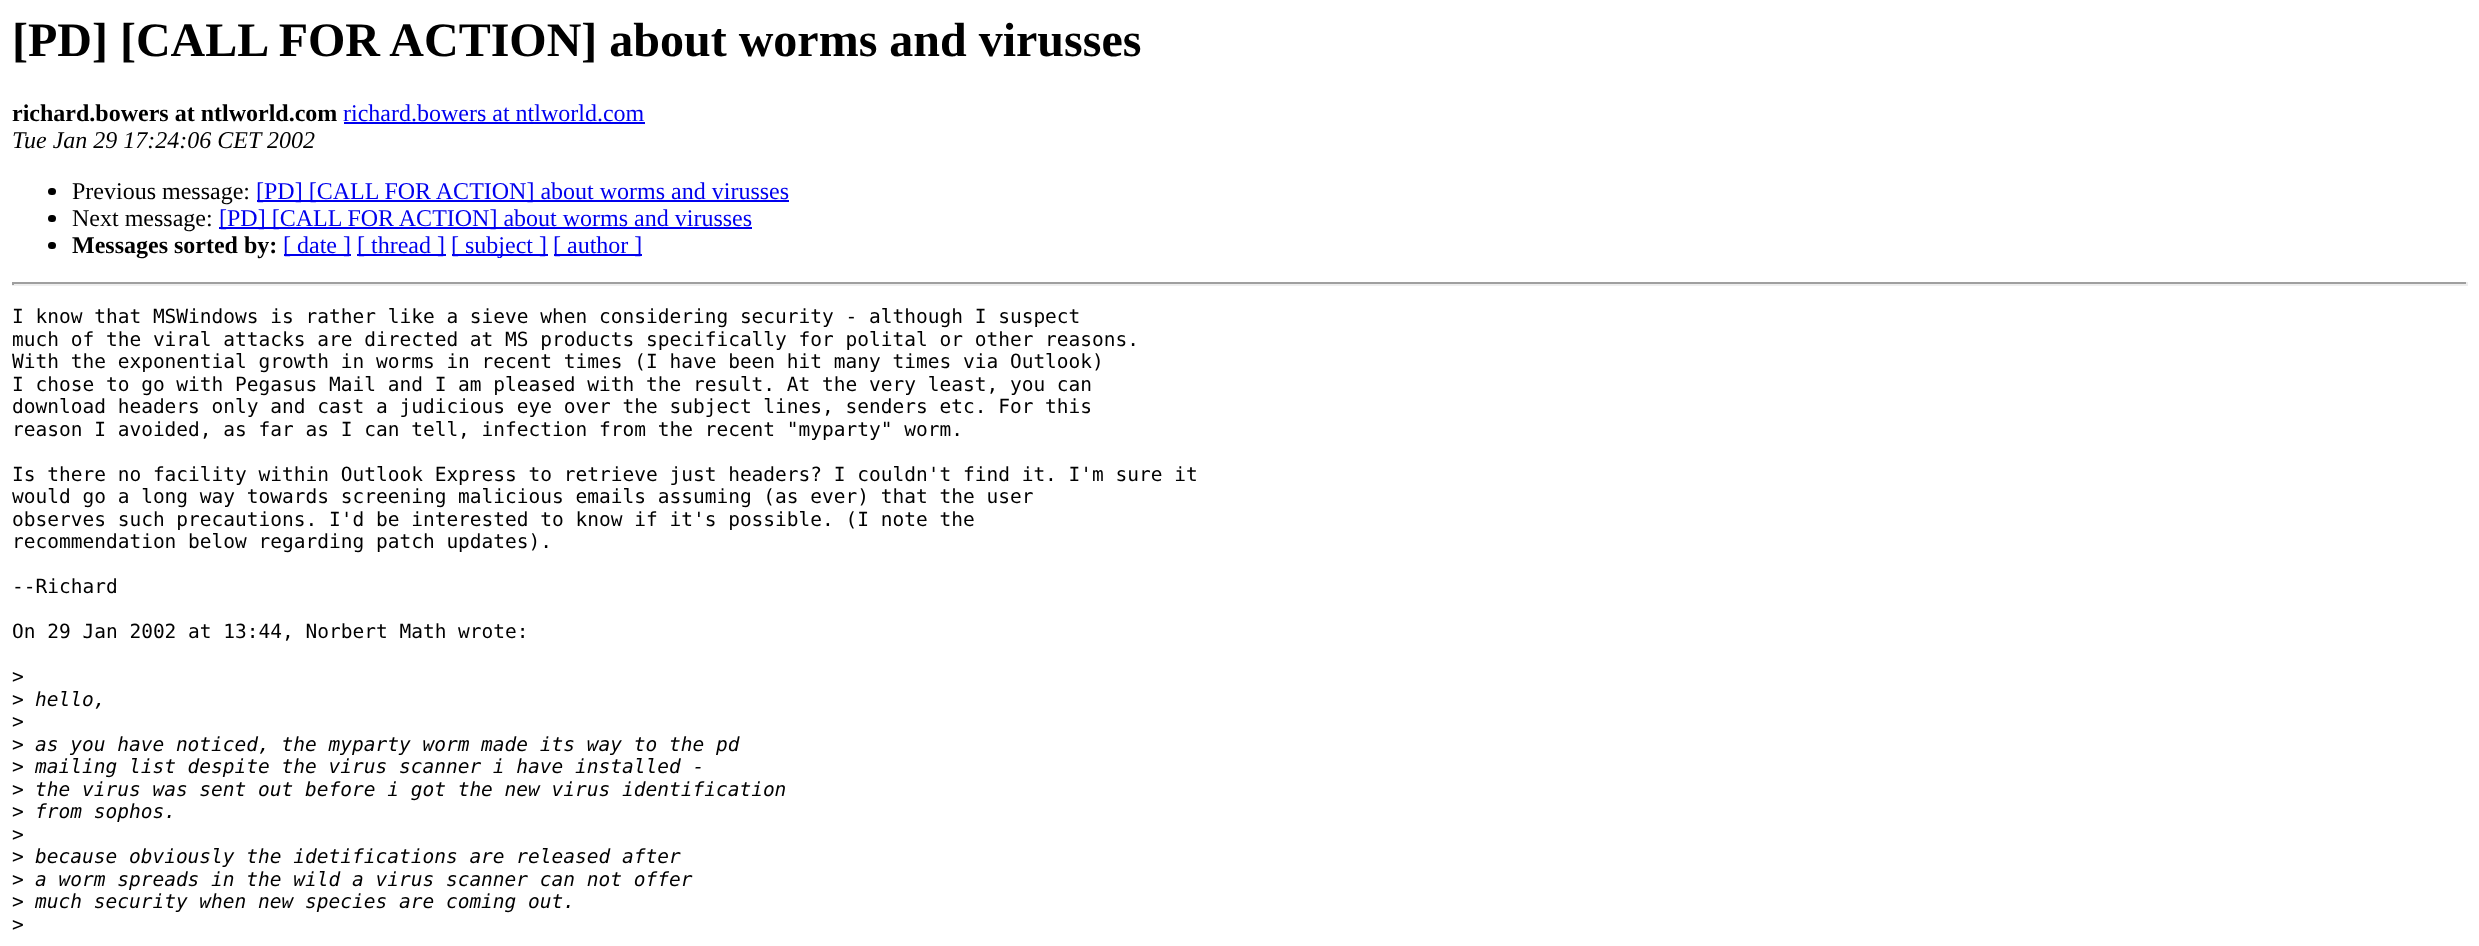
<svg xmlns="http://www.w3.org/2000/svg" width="2479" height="946">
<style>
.a{font:bold 48px Liberation Serif;fill:#000}
.b{font:bold 24px Liberation Serif;fill:#000}
.c{font:24px Liberation Serif;fill:#00e}
.d{font:italic 24px Liberation Serif;fill:#000}
.e{font:24px Liberation Serif;fill:#000}
.f{font:19.5px DejaVu Sans Mono;fill:#000}
.g{font:italic 19.5px DejaVu Sans Mono;fill:#000}
</style>
<rect width="100%" height="100%" fill="#fff"/>
<path fill="#00e" d="M344 122h301v2H344z"/>
<rect fill="#000" x="48" y="188" width="8" height="7" rx="3.5"/>
<path fill="#00e" d="M257 200h532v2H257z"/>
<rect fill="#000" x="48" y="215" width="8" height="7" rx="3.5"/>
<path fill="#00e" d="M219 227h533v2H219z"/>
<rect fill="#000" x="48" y="242" width="8" height="7" rx="3.5"/>
<path fill="#00e" d="M284 254h67v2H284z"/>
<path fill="#00e" d="M357 254h89v2H357z"/>
<path fill="#00e" d="M452 254h96v2H452z"/>
<path fill="#00e" d="M554 254h88v2H554z"/>
<path fill="#9f9f9f" d="M12 282h2456v2H12z"/>
<path fill="#eee" d="M2466 282h2v3H2466z"/>
<path fill="#eee" d="M12 284h2456v2H12z"/>
<path fill="#9f9f9f" d="M12 282h2v3H12z"/>
<text class="a" x="12" y="56">[PD] [CALL FOR ACTION] about worms and virusses</text>
<text class="b" x="12" y="121">richard.bowers at ntlworld.com</text>
<text class="c" x="343" y="121">richard.bowers at ntlworld.com</text>
<text class="d" x="12" y="148">Tue Jan 29 17:24:06 CET 2002</text>
<text class="e" x="72" y="199">Previous message:</text>
<text class="c" x="256" y="199">[PD] [CALL FOR ACTION] about worms and virusses</text>
<text class="e" x="72" y="226">Next message:</text>
<text class="c" x="219" y="226">[PD] [CALL FOR ACTION] about worms and virusses</text>
<text class="b" x="72" y="253">Messages sorted by:</text>
<text class="c" x="283" y="253">[ date ]</text>
<text class="c" x="357" y="253">[ thread ]</text>
<text class="c" x="451" y="253">[ subject ]</text>
<text class="c" x="553" y="253">[ author ]</text>
<text class="f" x="12" y="323">I know that MSWindows is rather like a sieve when considering security - although I suspect</text>
<text class="f" x="12" y="346">much of the viral attacks are directed at MS products specifically for polital or other reasons.</text>
<text class="f" x="12" y="368">With the exponential growth in worms in recent times (I have been hit many times via Outlook)</text>
<text class="f" x="12" y="391">I chose to go with Pegasus Mail and I am pleased with the result. At the very least, you can</text>
<text class="f" x="12" y="413">download headers only and cast a judicious eye over the subject lines, senders etc. For this</text>
<text class="f" x="12" y="436">reason I avoided, as far as I can tell, infection from the recent "myparty" worm.</text>
<text class="f" x="12" y="481">Is there no facility within Outlook Express to retrieve just headers? I couldn't find it. I'm sure it</text>
<text class="f" x="12" y="503">would go a long way towards screening malicious emails assuming (as ever) that the user</text>
<text class="f" x="12" y="526">observes such precautions. I'd be interested to know if it's possible. (I note the</text>
<text class="f" x="12" y="548">recommendation below regarding patch updates).</text>
<text class="f" x="12" y="593">--Richard</text>
<text class="f" x="12" y="638">On 29 Jan 2002 at 13:44, Norbert Math wrote:</text>
<text class="f" x="12" y="683">&gt;</text>
<text class="f" x="12" y="706">&gt;</text>
<text class="g" x="35" y="706">hello,</text>
<text class="f" x="12" y="728">&gt;</text>
<text class="f" x="12" y="751">&gt;</text>
<text class="g" x="35" y="751">as you have noticed, the myparty worm made its way to the pd</text>
<text class="f" x="12" y="773">&gt;</text>
<text class="g" x="35" y="773">mailing list despite the virus scanner i have installed -</text>
<text class="f" x="12" y="796">&gt;</text>
<text class="g" x="35" y="796">the virus was sent out before i got the new virus identification</text>
<text class="f" x="12" y="818">&gt;</text>
<text class="g" x="35" y="818">from sophos.</text>
<text class="f" x="12" y="841">&gt;</text>
<text class="f" x="12" y="863">&gt;</text>
<text class="g" x="35" y="863">because obviously the idetifications are released after</text>
<text class="f" x="12" y="886">&gt;</text>
<text class="g" x="35" y="886">a worm spreads in the wild a virus scanner can not offer</text>
<text class="f" x="12" y="908">&gt;</text>
<text class="g" x="35" y="908">much security when new species are coming out.</text>
<text class="f" x="12" y="931">&gt;</text>
</svg>
